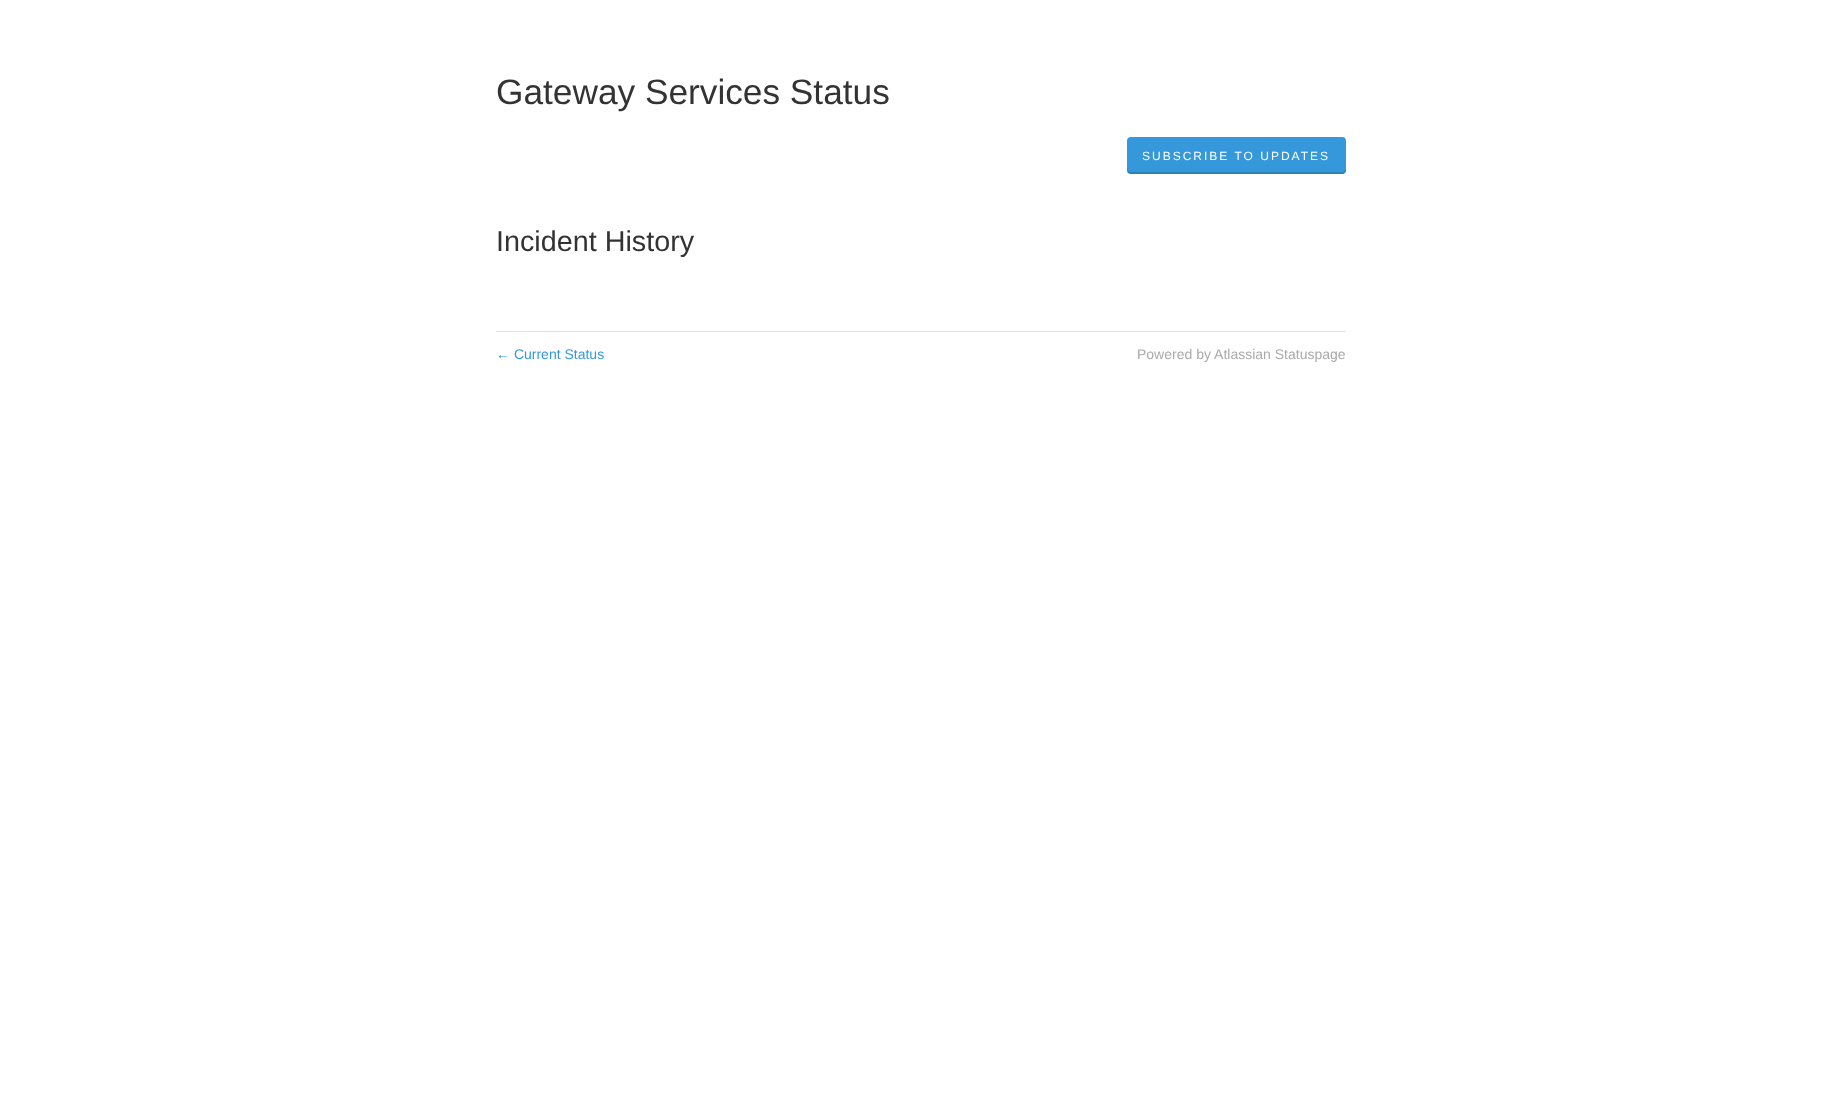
<svg xmlns="http://www.w3.org/2000/svg" width="1841" height="1119">
<style>
.a{font:35.25px Liberation Sans;fill:#333}
.b{font:12px Liberation Sans;letter-spacing:2px;fill:#fff}
.c{font:28.75px Liberation Sans;fill:#333}
.d{font:14px Liberation Sans;fill:#3498db}
.e{font:14px Liberation Sans;fill:#aaa}
</style>
<rect width="100%" height="100%" fill="#fff"/>
<rect fill="#3498db" x="1127" y="137" width="219" height="37" rx="4"/>
<path fill="#00000026" d="M1127 168c0 3 0 5 3 6h213c3-1 3-3 3-6c0 2-2 4-4 4h-211c-2 0-4-2-4-4z"/>
<path fill="#e0e0e0" d="M496 331h850v1H496z"/>
<text class="a" x="496" y="104">Gateway Services Status</text>
<text class="b" x="1142" y="160">SUBSCRIBE TO UPDATES</text>
<text class="c" x="496" y="251">Incident History</text>
<text class="d" x="496" y="359">← Current Status</text>
<text class="e" x="1137" y="359">Powered by Atlassian Statuspage</text>
</svg>
